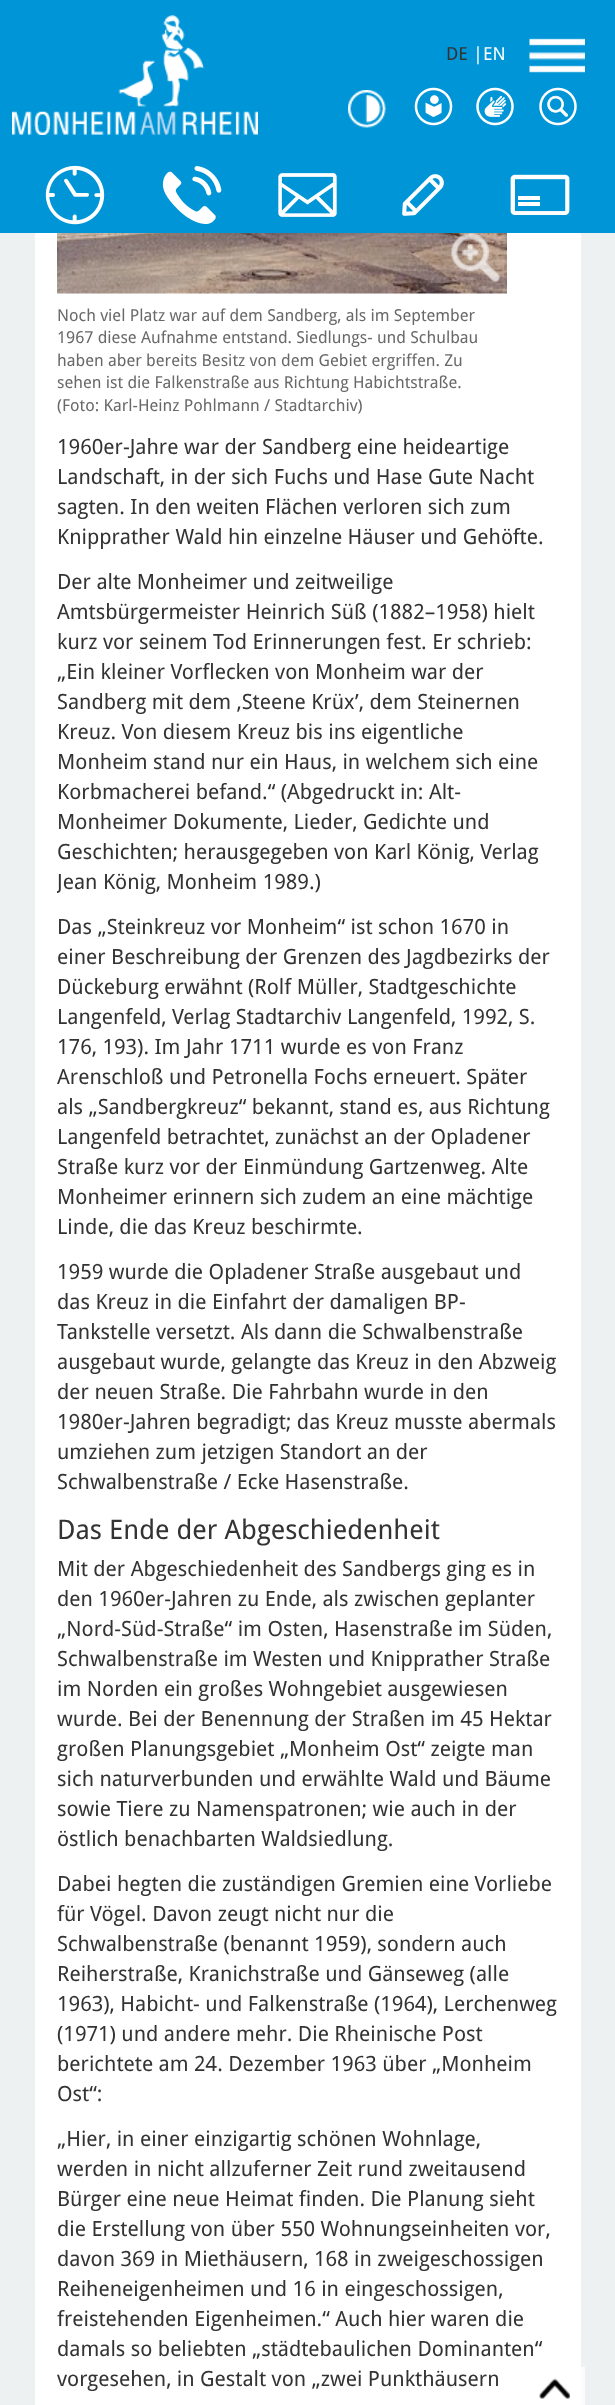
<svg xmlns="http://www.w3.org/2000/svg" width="615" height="2405">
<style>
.a{font:18px Droid Sans;fill:#333}
.b{font:18px Droid Sans;fill:#fff}
.c{font:16.5px Droid Sans;fill:#696969}
.d{font:21px Droid Sans;fill:#333}
.e{font:27px Droid Sans;fill:#333}
</style>
<defs>
<clipPath id="clip1"><path d="M57 59h501v1453H57z"/></clipPath>
</defs>
<rect width="100%" height="100%" fill="#edf1f2"/>
<path fill="#0095d6" d="M0 0h615v233H0z"/>
<image href="1.png" x="12" y="15" width="246" height="120"/>
<image href="2.png" x="348" y="90" width="38" height="38"/>
<image href="3.png" x="414" y="87" width="39" height="39"/>
<image href="4.png" x="476" y="87" width="38" height="39"/>
<image href="5.png" x="539" y="87" width="38" height="39"/>
<image href="6.png" x="529" y="38" width="56" height="35"/>
<image href="7.png" x="45" y="165" width="60" height="60"/>
<image href="8.png" x="162" y="166" width="60" height="58"/>
<image href="9.png" x="278" y="173" width="59" height="44"/>
<image href="10.png" x="402" y="174" width="42" height="42"/>
<image href="11.png" x="510" y="174" width="60" height="41"/>
<path fill="#fff" d="M35 233h546v2172H35z"/>
<image href="12.png" x="57" y="233" width="450" height="61"/>
<image href="13.png" x="451" y="233" width="49" height="49"/>
<path fill="#ffffffcc" d="M581 2367h4v38H581z"/>
<image href="14.png" x="539" y="2378" width="31" height="21"/>
<text class="a" x="446" y="60">DE</text>
<text class="b" x="473" y="60">|EN</text>
<text class="c" x="57" y="321">Noch viel Platz war auf dem Sandberg, als im September</text>
<text class="c" x="57" y="343">1967 diese Aufnahme entstand. Siedlungs- und Schulbau</text>
<text class="c" x="57" y="366">haben aber bereits Besitz von dem Gebiet ergriffen. Zu</text>
<text class="c" x="57" y="388">sehen ist die Falkenstraße aus Richtung Habichtstraße.</text>
<text class="c" x="57" y="411">(Foto: Karl-Heinz Pohlmann / Stadtarchiv)</text>
<text class="d" x="57" y="454">1960er-Jahre war der Sandberg eine heideartige</text>
<text class="d" x="57" y="484">Landschaft, in der sich Fuchs und Hase Gute Nacht</text>
<text class="d" x="57" y="514">sagten. In den weiten Flächen verloren sich zum</text>
<text class="d" x="57" y="544">Knipprather Wald hin einzelne Häuser und Gehöfte.</text>
<text class="d" x="57" y="589">Der alte Monheimer und zeitweilige</text>
<text class="d" x="57" y="619">Amtsbürgermeister Heinrich Süß (1882–1958) hielt</text>
<text class="d" x="57" y="649">kurz vor seinem Tod Erinnerungen fest. Er schrieb:</text>
<text class="d" x="57" y="679">„Ein kleiner Vorflecken von Monheim war der</text>
<text class="d" x="57" y="709">Sandberg mit dem ‚Steene Krüx’, dem Steinernen</text>
<text class="d" x="57" y="739">Kreuz. Von diesem Kreuz bis ins eigentliche</text>
<text class="d" x="57" y="769">Monheim stand nur ein Haus, in welchem sich eine</text>
<text class="d" x="57" y="799">Korbmacherei befand.“ (Abgedruckt in: Alt-</text>
<text class="d" x="57" y="829">Monheimer Dokumente, Lieder, Gedichte und</text>
<text class="d" x="57" y="859">Geschichten; herausgegeben von Karl König, Verlag</text>
<g clip-path="url(#clip1)">
<text class="d" x="57" y="889">Jean König, Monheim 1989.)</text>
</g>
<text class="d" x="57" y="934">Das „Steinkreuz vor Monheim“ ist schon 1670 in</text>
<text class="d" x="57" y="964">einer Beschreibung der Grenzen des Jagdbezirks der</text>
<text class="d" x="57" y="994">Dückeburg erwähnt (Rolf Müller, Stadtgeschichte</text>
<text class="d" x="57" y="1024">Langenfeld, Verlag Stadtarchiv Langenfeld, 1992, S.</text>
<text class="d" x="57" y="1054">176, 193). Im Jahr 1711 wurde es von Franz</text>
<text class="d" x="57" y="1084">Arenschloß und Petronella Fochs erneuert. Später</text>
<text class="d" x="57" y="1114">als „Sandbergkreuz“ bekannt, stand es, aus Richtung</text>
<text class="d" x="57" y="1144">Langenfeld betrachtet, zunächst an der Opladener</text>
<text class="d" x="57" y="1174">Straße kurz vor der Einmündung Gartzenweg. Alte</text>
<text class="d" x="57" y="1204">Monheimer erinnern sich zudem an eine mächtige</text>
<text class="d" x="57" y="1234">Linde, die das Kreuz beschirmte.</text>
<text class="d" x="57" y="1279">1959 wurde die Opladener Straße ausgebaut und</text>
<text class="d" x="57" y="1309">das Kreuz in die Einfahrt der damaligen BP-</text>
<text class="d" x="57" y="1339">Tankstelle versetzt. Als dann die Schwalbenstraße</text>
<text class="d" x="57" y="1369">ausgebaut wurde, gelangte das Kreuz in den Abzweig</text>
<text class="d" x="57" y="1399">der neuen Straße. Die Fahrbahn wurde in den</text>
<text class="d" x="57" y="1429">1980er-Jahren begradigt; das Kreuz musste abermals</text>
<text class="d" x="57" y="1459">umziehen zum jetzigen Standort an der</text>
<text class="d" x="57" y="1489">Schwalbenstraße / Ecke Hasenstraße.</text>
<text class="e" x="57" y="1539">Das Ende der Abgeschiedenheit</text>
<text class="d" x="57" y="1576">Mit der Abgeschiedenheit des Sandbergs ging es in</text>
<text class="d" x="57" y="1606">den 1960er-Jahren zu Ende, als zwischen geplanter</text>
<text class="d" x="57" y="1636">„Nord-Süd-Straße“ im Osten, Hasenstraße im Süden,</text>
<text class="d" x="57" y="1666">Schwalbenstraße im Westen und Knipprather Straße</text>
<text class="d" x="57" y="1696">im Norden ein großes Wohngebiet ausgewiesen</text>
<text class="d" x="57" y="1726">wurde. Bei der Benennung der Straßen im 45 Hektar</text>
<text class="d" x="57" y="1756">großen Planungsgebiet „Monheim Ost“ zeigte man</text>
<text class="d" x="57" y="1786">sich naturverbunden und erwählte Wald und Bäume</text>
<text class="d" x="57" y="1816">sowie Tiere zu Namenspatronen; wie auch in der</text>
<text class="d" x="57" y="1846">östlich benachbarten Waldsiedlung.</text>
<text class="d" x="57" y="1891">Dabei hegten die zuständigen Gremien eine Vorliebe</text>
<text class="d" x="57" y="1921">für Vögel. Davon zeugt nicht nur die</text>
<text class="d" x="57" y="1951">Schwalbenstraße (benannt 1959), sondern auch</text>
<text class="d" x="57" y="1981">Reiherstraße, Kranichstraße und Gänseweg (alle</text>
<text class="d" x="57" y="2011">1963), Habicht- und Falkenstraße (1964), Lerchenweg</text>
<text class="d" x="57" y="2041">(1971) und andere mehr. Die Rheinische Post</text>
<text class="d" x="57" y="2071">berichtete am 24. Dezember 1963 über „Monheim</text>
<text class="d" x="57" y="2101">Ost“:</text>
<text class="d" x="57" y="2146">„Hier, in einer einzigartig schönen Wohnlage,</text>
<text class="d" x="57" y="2176">werden in nicht allzuferner Zeit rund zweitausend</text>
<text class="d" x="57" y="2206">Bürger eine neue Heimat finden. Die Planung sieht</text>
<text class="d" x="57" y="2236">die Erstellung von über 550 Wohnungseinheiten vor,</text>
<text class="d" x="57" y="2266">davon 369 in Miethäusern, 168 in zweigeschossigen</text>
<text class="d" x="57" y="2296">Reiheneigenheimen und 16 in eingeschossigen,</text>
<text class="d" x="57" y="2326">freistehenden Eigenheimen.“ Auch hier waren die</text>
<text class="d" x="57" y="2356">damals so beliebten „städtebaulichen Dominanten“</text>
<text class="d" x="57" y="2386">vorgesehen, in Gestalt von „zwei Punkthäusern</text>
</svg>
